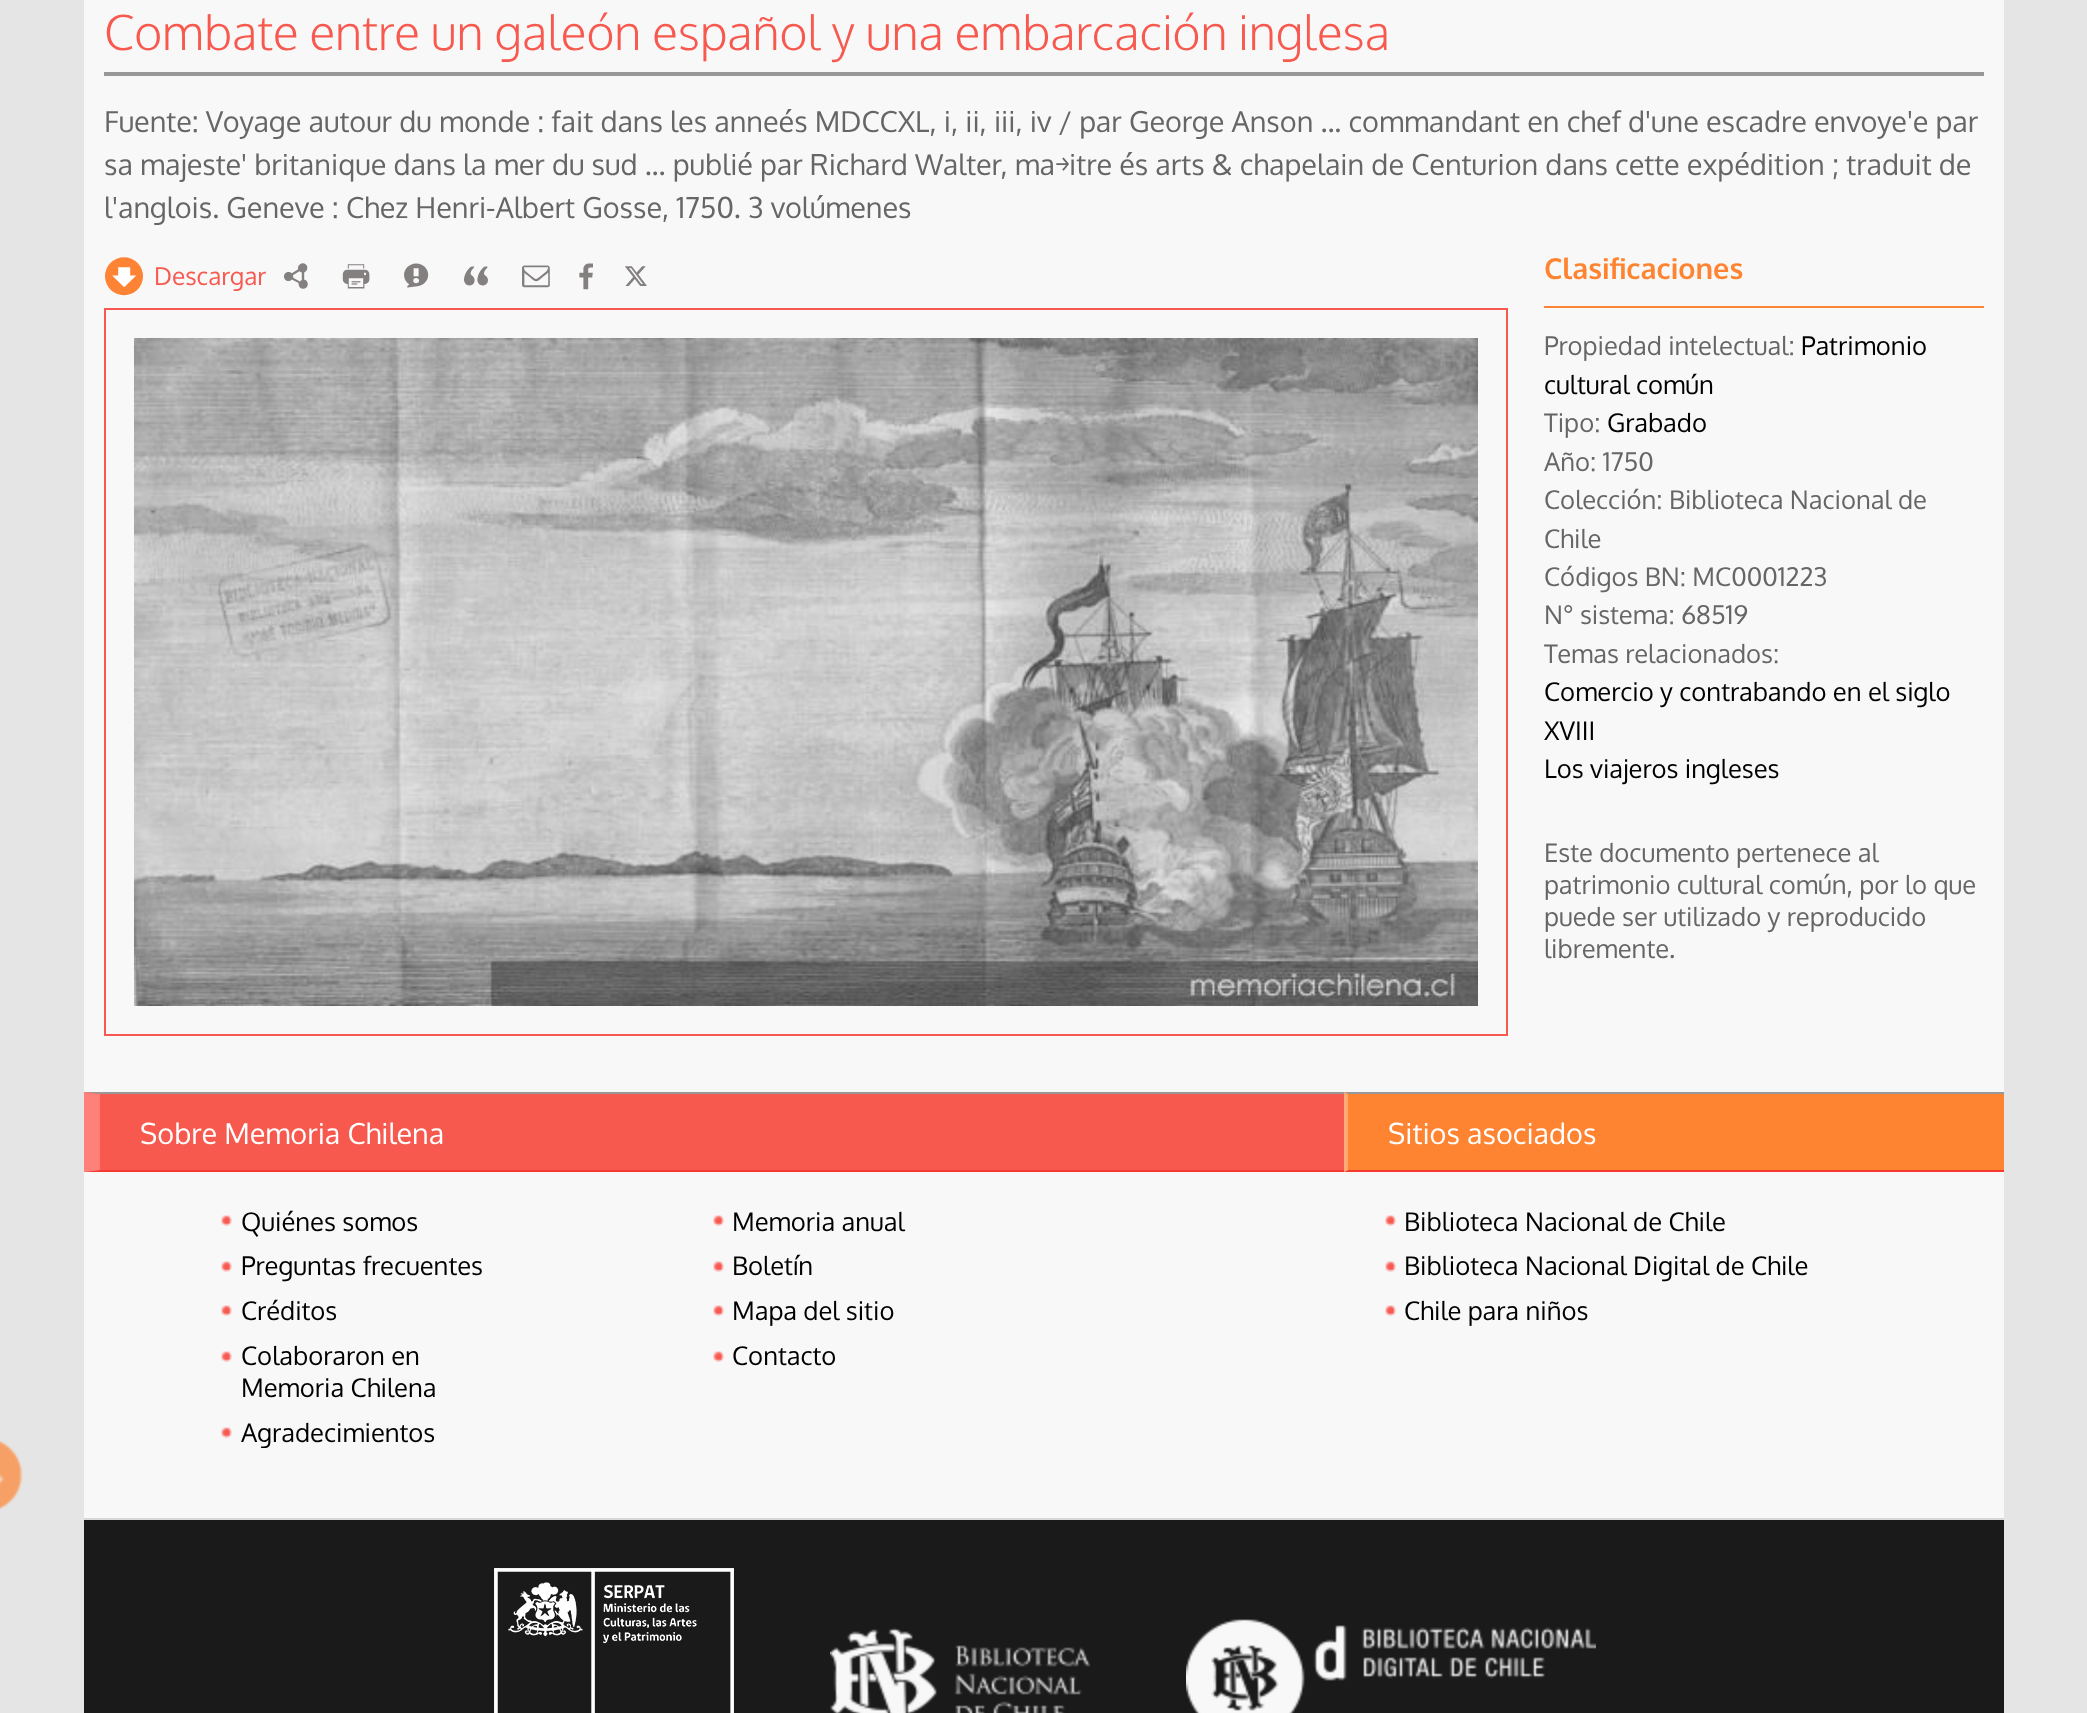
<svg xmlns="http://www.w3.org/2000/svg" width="2087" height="1713">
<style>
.a{font:300 48px Oxygen;fill:#f7594f}
.b{font:28.8px Oxygen;fill:#666}
.c{font:28.8px Chiron Hei HK;fill:#666}
.d{font:24.5px Oxygen;fill:#f7594f}
.e{font:bold 28.8px Oxygen;fill:#ff8431}
.f{font:25.6px Oxygen;fill:#666}
.g{font:25.6px Oxygen;fill:#000}
.h{font:28.8px Oxygen;fill:#fff}
</style>
<defs>
<clipPath id="clip1"><path d="M220 1402h284v46H220z"/></clipPath>
</defs>
<rect width="100%" height="100%" fill="#e5e5e5"/>
<path fill="#f8f8f8" d="M84 0h1920v1518H84z"/>
<path fill="#989898" d="M104 72h1880v4H104z"/>
<image href="1.png" x="104" y="257" width="40" height="39"/>
<image href="2.png" x="283" y="263" width="25" height="26"/>
<image href="3.png" x="342" y="264" width="28" height="25"/>
<image href="4.png" x="404" y="263" width="25" height="25"/>
<image href="5.png" x="464" y="266" width="24" height="20"/>
<image href="6.png" x="522" y="265" width="28" height="23"/>
<image href="7.png" x="579" y="263" width="14" height="27"/>
<image href="8.png" x="625" y="266" width="22" height="20"/>
<path fill="none" stroke="#f7594f" stroke-width="2" d="M105 309h1402v726H105z"/>
<image href="9.png" x="134" y="338" width="1344" height="668"/>
<path fill="#ff8431" d="M1544 306h440v2H1544z"/>
<path fill="#f7594f" d="M84 1092h1260v80H84z"/>
<path fill="#989898" d="M84 1092h1260v2h-1244z"/>
<path fill="#f73934" d="M1344 1172h-1260l16-2h1244z"/>
<path fill="#fe8179" d="M84 1172v-80l16 2v76z"/>
<image href="10.png" x="221" y="1215" width="11" height="11"/>
<image href="10.png" x="221" y="1261" width="11" height="11"/>
<image href="10.png" x="221" y="1305" width="11" height="11"/>
<image href="10.png" x="221" y="1351" width="11" height="11"/>
<image href="10.png" x="221" y="1427" width="11" height="11"/>
<image href="10.png" x="713" y="1215" width="11" height="11"/>
<image href="10.png" x="713" y="1261" width="11" height="11"/>
<image href="10.png" x="713" y="1305" width="11" height="11"/>
<image href="10.png" x="713" y="1351" width="11" height="11"/>
<path fill="#ff8431" d="M1344 1092h660v80H1344z"/>
<path fill="#989898" d="M1344 1092h660v2h-656z"/>
<path fill="#f73934" d="M2004 1172h-660l4-2h656z"/>
<path fill="#ffaa74" d="M1344 1172v-80l4 2v76z"/>
<image href="10.png" x="1385" y="1215" width="11" height="11"/>
<image href="10.png" x="1385" y="1261" width="11" height="11"/>
<image href="10.png" x="1385" y="1305" width="11" height="11"/>
<image href="11.png" x="0" y="1440" width="23" height="70"/>
<path fill="#1a1a1a" d="M84 1520h1920v193H84z"/>
<path fill="#d7d7d7" d="M84 1518h1920v2H84z"/>
<image href="12.png" x="494" y="1568" width="240" height="145"/>
<image href="13.png" x="830" y="1627" width="260" height="86"/>
<image href="14.png" x="1186" y="1619" width="410" height="94"/>
<text class="a" x="104" y="50">Combate entre un galeón español y una embarcación inglesa</text>
<text class="b" x="104" y="132">Fuente: Voyage autour du monde : fait dans les anneés MDCCXL, i, ii, iii, iv / par George Anson ... commandant en chef d'une escadre envoye'e par</text>
<text class="b" x="104" y="175">sa majeste' britanique dans la mer du sud ... publié par Richard Walter, ma</text>
<text class="c" x="1055" y="175">￫</text>
<text class="b" x="1069" y="175">itre és arts &amp; chapelain de Centurion dans cette expédition ; traduit de</text>
<text class="b" x="104" y="218">l'anglois. Geneve : Chez Henri-Albert Gosse, 1750. 3 volúmenes</text>
<text class="d" x="154" y="285">Descargar</text>
<text class="e" x="1544" y="279">Clasificaciones</text>
<text class="f" x="1544" y="355">Propiedad intelectual:</text>
<text class="g" x="1801" y="355">Patrimonio</text>
<text class="g" x="1544" y="394">cultural común</text>
<text class="f" x="1544" y="432">Tipo:</text>
<text class="g" x="1607" y="432">Grabado</text>
<text class="f" x="1544" y="471">Año: 1750</text>
<text class="f" x="1544" y="509">Colección: Biblioteca Nacional de</text>
<text class="f" x="1544" y="548">Chile</text>
<text class="f" x="1544" y="586">Códigos BN: MC0001223</text>
<text class="f" x="1544" y="624">N° sistema: 68519</text>
<text class="f" x="1544" y="663">Temas relacionados:</text>
<text class="g" x="1544" y="701">Comercio y contrabando en el siglo</text>
<text class="g" x="1544" y="740">XVIII</text>
<text class="g" x="1544" y="778">Los viajeros ingleses</text>
<text class="f" x="1544" y="862">Este documento pertenece al</text>
<text class="f" x="1544" y="894">patrimonio cultural común, por lo que</text>
<text class="f" x="1544" y="926">puede ser utilizado y reproducido</text>
<text class="f" x="1544" y="958">libremente.</text>
<text class="h" x="140" y="1144">Sobre Memoria Chilena</text>
<text class="g" x="241" y="1231">Quiénes somos</text>
<text class="g" x="241" y="1275">Preguntas frecuentes</text>
<text class="g" x="241" y="1320">Créditos</text>
<text class="g" x="241" y="1365">Colaboraron en</text>
<text class="g" x="241" y="1397">Memoria Chilena</text>
<g clip-path="url(#clip1)">
<text class="g" x="241" y="1442">Agradecimientos</text>
</g>
<text class="g" x="732" y="1231">Memoria anual</text>
<text class="g" x="732" y="1275">Boletín</text>
<text class="g" x="732" y="1320">Mapa del sitio</text>
<text class="g" x="732" y="1365">Contacto</text>
<text class="h" x="1388" y="1144">Sitios asociados</text>
<text class="g" x="1404" y="1231">Biblioteca Nacional de Chile</text>
<text class="g" x="1404" y="1275">Biblioteca Nacional Digital de Chile</text>
<text class="g" x="1404" y="1320">Chile para niños</text>
</svg>
